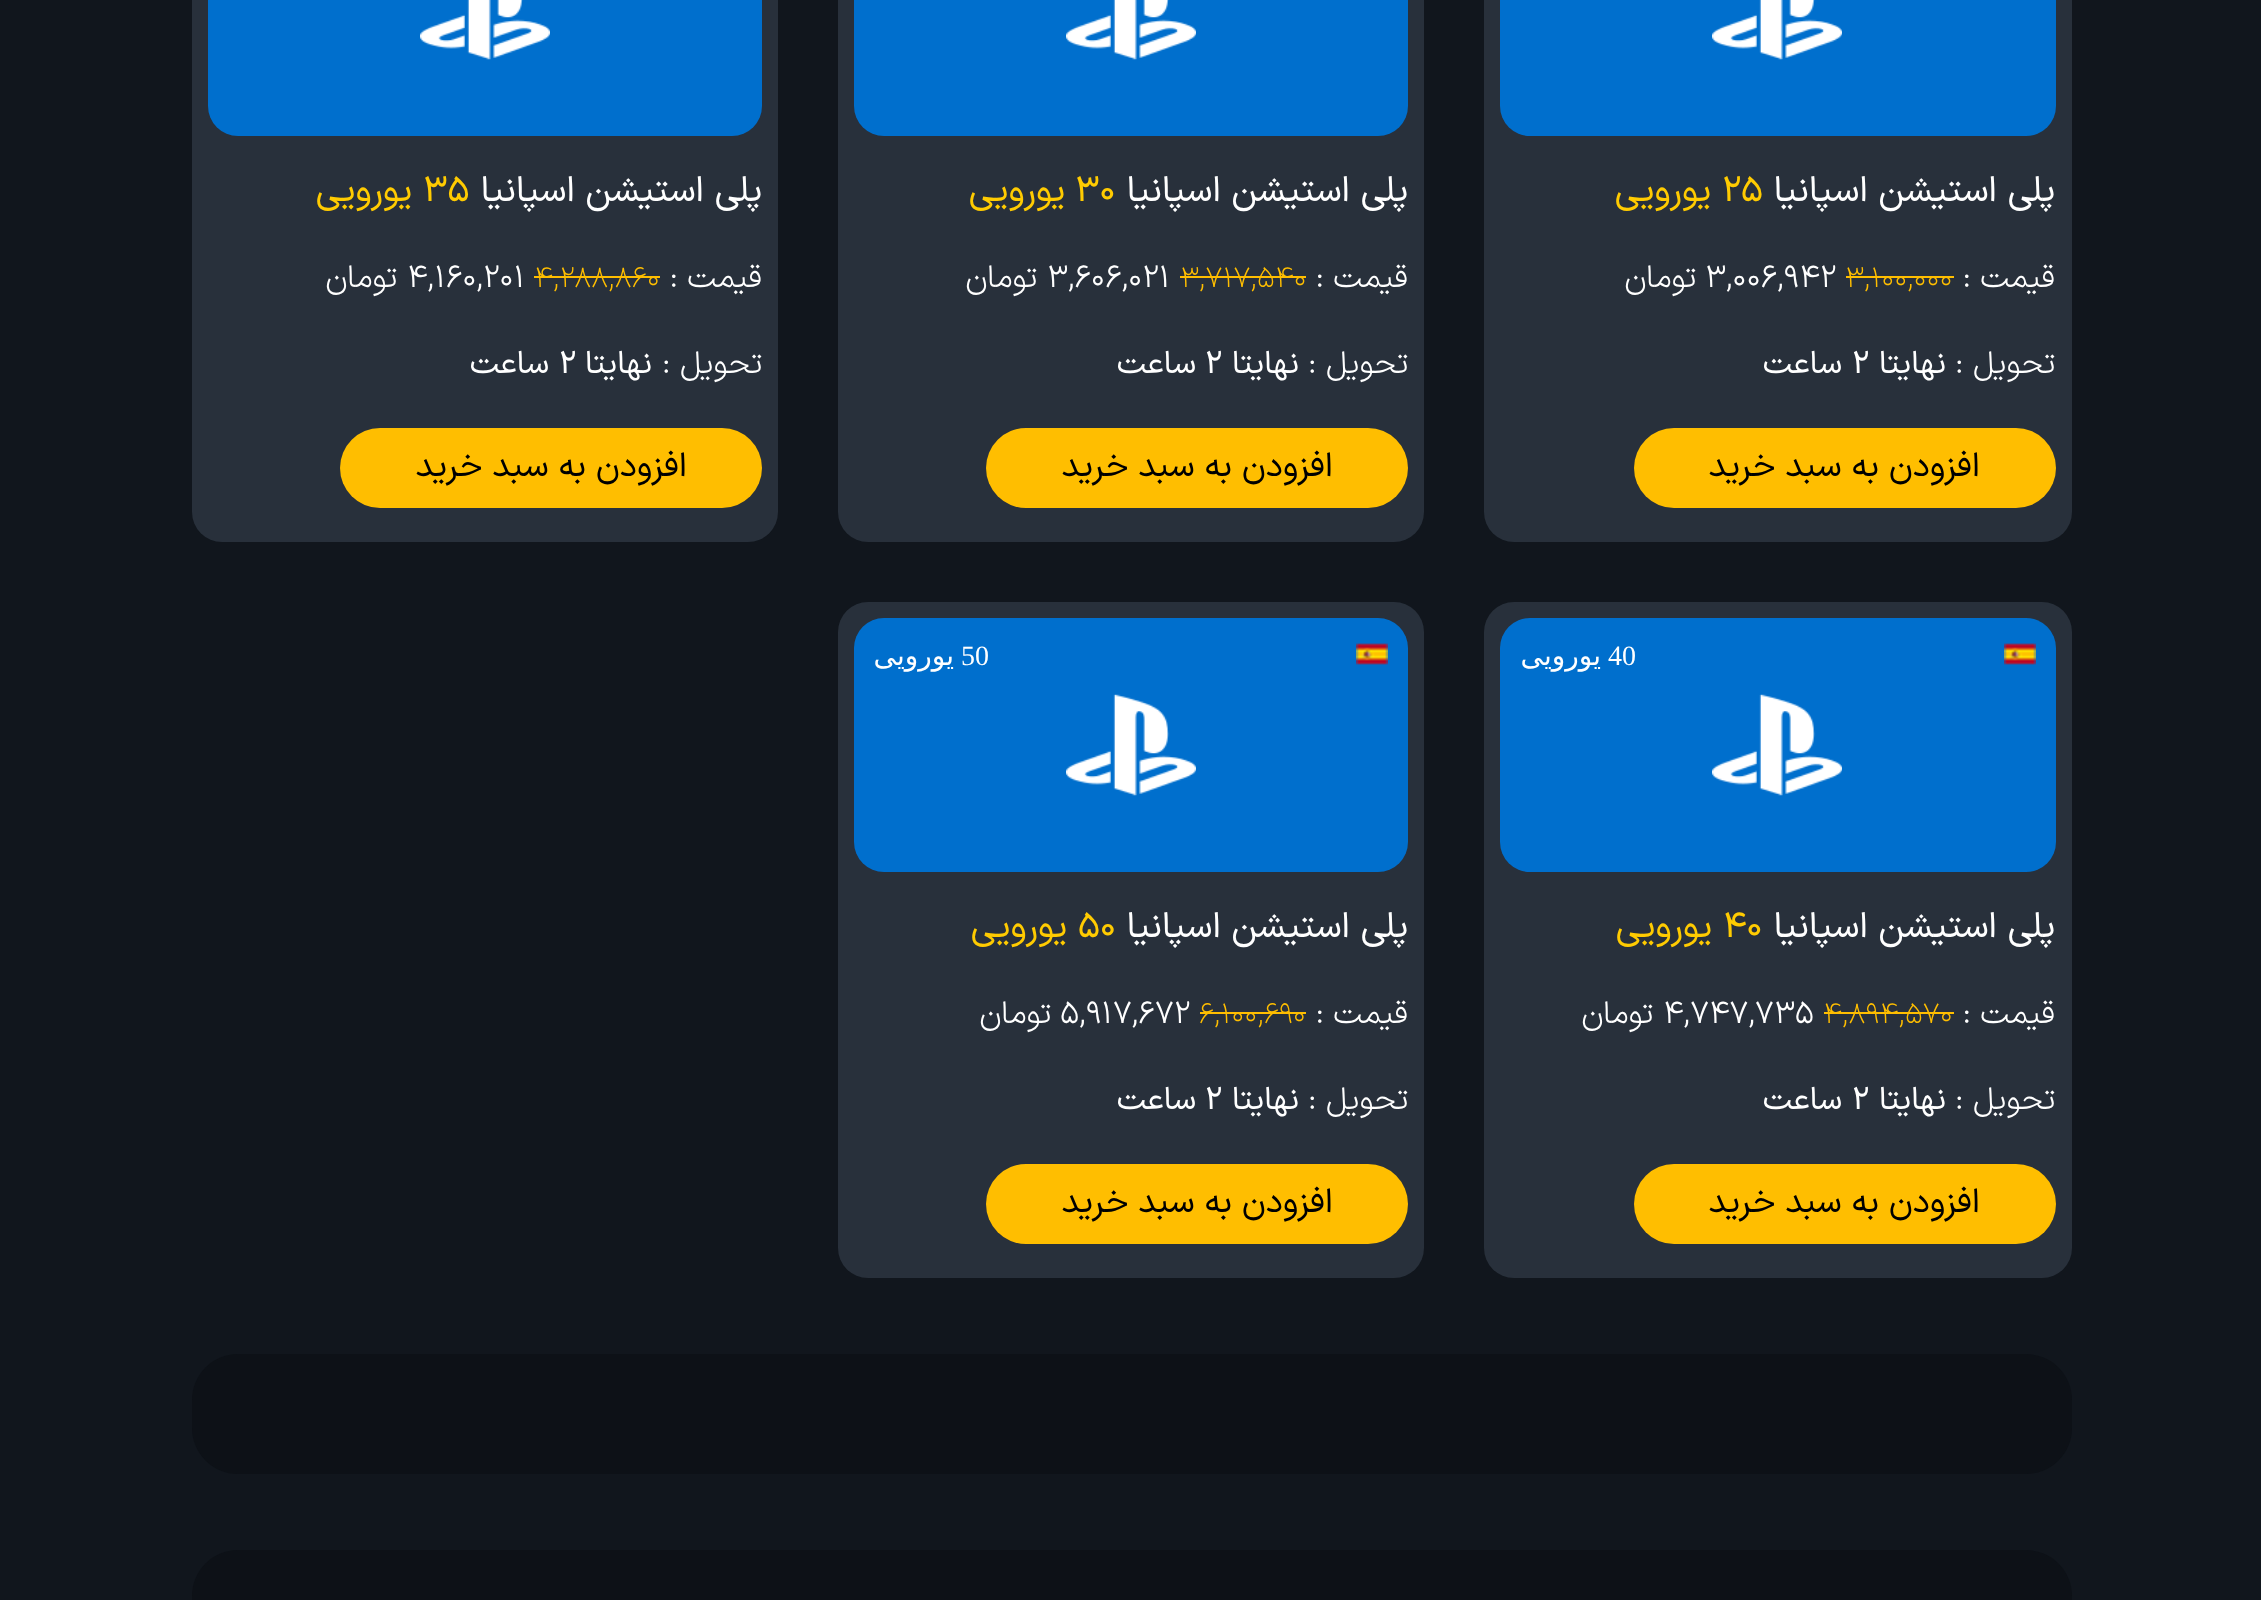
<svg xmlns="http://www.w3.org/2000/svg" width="2261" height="1600">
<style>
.a{font:36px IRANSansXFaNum;direction:rtl;fill:#fff}
.b{font:36px IRANSansXFaNum;fill:#ffcb01}
.c{font:36px IRANSansXFaNum;direction:rtl;fill:#ffcb01}
.d{font:300 32px IRANSansXFaNum;direction:rtl;fill:#fff}
.e{font:200 30px IRANSansXFaNum;fill:#ffbe00}
.f{font:300 32px IRANSansXFaNum;fill:#fff}
.g{font:32px IRANSansXFaNum;direction:rtl;fill:#fff}
.h{font:32px IRANSansXFaNum;fill:#fff}
.i{font:34px IRANSansXFaNum;direction:rtl;fill:#000}
.j{font:28px Liberation Serif;fill:#fff}
.k{font:28px DejaVu Sans;direction:rtl;fill:#fff}
</style>
<rect width="100%" height="100%" fill="#11161d"/>
<rect fill="#28303b" x="1484" y="-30" width="588" height="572" rx="30"/>
<rect fill="#006fcd" x="1500" y="-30" width="556" height="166" rx="30"/>
<image href="1.png" x="1712" y="0" width="130" height="60"/>
<path fill="#ffbe00" d="M1846 276h108v2H1846z"/>
<rect fill="#ffbe00" x="1634" y="428" width="422" height="80" rx="40"/>
<rect fill="#28303b" x="838" y="-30" width="586" height="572" rx="30"/>
<rect fill="#006fcd" x="854" y="-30" width="554" height="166" rx="30"/>
<image href="1.png" x="1066" y="0" width="130" height="60"/>
<path fill="#ffbe00" d="M1180 276h126v2H1180z"/>
<rect fill="#ffbe00" x="986" y="428" width="422" height="80" rx="40"/>
<rect fill="#28303b" x="192" y="-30" width="586" height="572" rx="30"/>
<rect fill="#006fcd" x="208" y="-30" width="554" height="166" rx="30"/>
<image href="1.png" x="420" y="0" width="130" height="60"/>
<path fill="#ffbe00" d="M534 276h126v2H534z"/>
<rect fill="#ffbe00" x="340" y="428" width="422" height="80" rx="40"/>
<rect fill="#28303b" x="1484" y="602" width="588" height="676" rx="30"/>
<rect fill="#006fcd" x="1500" y="618" width="556" height="254" rx="30"/>
<image href="2.png" x="2004" y="643" width="32" height="22"/>
<image href="3.png" x="1712" y="694" width="130" height="102"/>
<path fill="#ffbe00" d="M1824 1012h130v2H1824z"/>
<rect fill="#ffbe00" x="1634" y="1164" width="422" height="80" rx="40"/>
<rect fill="#28303b" x="838" y="602" width="586" height="676" rx="30"/>
<rect fill="#006fcd" x="854" y="618" width="554" height="254" rx="30"/>
<image href="2.png" x="1356" y="643" width="32" height="22"/>
<image href="3.png" x="1066" y="694" width="130" height="102"/>
<path fill="#ffbe00" d="M1200 1012h106v2H1200z"/>
<rect fill="#ffbe00" x="986" y="1164" width="422" height="80" rx="40"/>
<rect fill="#0d1117" x="192" y="1354" width="1880" height="120" rx="46"/>
<rect fill="#0d1117" x="192" y="1550" width="1880" height="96" rx="46"/>
<text class="a" x="2055" y="201">پلی استیشن اسپانیا</text>
<text class="b" x="1722" y="201">25</text>
<text class="c" x="1711" y="201">یورویی</text>
<text class="d" x="2055" y="287">قیمت :</text>
<text class="e" x="1845" y="287">3,100,000</text>
<text class="f" x="1705" y="287">3,006,942</text>
<text class="d" x="1696" y="287">تومان</text>
<text class="d" x="2055" y="373">تحویل :</text>
<text class="g" x="1946" y="373">نهایتا</text>
<text class="h" x="1852" y="373">2</text>
<text class="g" x="1842" y="373">ساعت</text>
<text class="i" x="1980" y="476">افزودن به سبد خرید</text>
<text class="a" x="1408" y="201">پلی استیشن اسپانیا</text>
<text class="b" x="1075" y="201">30</text>
<text class="c" x="1065" y="201">یورویی</text>
<text class="d" x="1408" y="287">قیمت :</text>
<text class="e" x="1180" y="287">3,717,540</text>
<text class="f" x="1047" y="287">3,606,021</text>
<text class="d" x="1037" y="287">تومان</text>
<text class="d" x="1408" y="373">تحویل :</text>
<text class="g" x="1299" y="373">نهایتا</text>
<text class="h" x="1205" y="373">2</text>
<text class="g" x="1196" y="373">ساعت</text>
<text class="i" x="1333" y="476">افزودن به سبد خرید</text>
<text class="a" x="762" y="201">پلی استیشن اسپانیا</text>
<text class="b" x="423" y="201">35</text>
<text class="c" x="412" y="201">یورویی</text>
<text class="d" x="762" y="287">قیمت :</text>
<text class="e" x="534" y="287">4,288,860</text>
<text class="f" x="407" y="287">4,160,201</text>
<text class="d" x="397" y="287">تومان</text>
<text class="d" x="762" y="373">تحویل :</text>
<text class="g" x="652" y="373">نهایتا</text>
<text class="h" x="559" y="373">2</text>
<text class="g" x="549" y="373">ساعت</text>
<text class="i" x="687" y="476">افزودن به سبد خرید</text>
<text class="j" x="1608" y="665">40</text>
<text class="k" x="1601" y="665">یورویی</text>
<text class="a" x="2055" y="937">پلی استیشن اسپانیا</text>
<text class="b" x="1723" y="937">40</text>
<text class="c" x="1712" y="937">یورویی</text>
<text class="d" x="2055" y="1023">قیمت :</text>
<text class="e" x="1823" y="1023">4,894,570</text>
<text class="f" x="1663" y="1023">4,747,735</text>
<text class="d" x="1653" y="1023">تومان</text>
<text class="d" x="2055" y="1109">تحویل :</text>
<text class="g" x="1946" y="1109">نهایتا</text>
<text class="h" x="1852" y="1109">2</text>
<text class="g" x="1842" y="1109">ساعت</text>
<text class="i" x="1980" y="1212">افزودن به سبد خرید</text>
<text class="j" x="961" y="665">50</text>
<text class="k" x="954" y="665">یورویی</text>
<text class="a" x="1408" y="937">پلی استیشن اسپانیا</text>
<text class="b" x="1078" y="937">50</text>
<text class="c" x="1067" y="937">یورویی</text>
<text class="d" x="1408" y="1023">قیمت :</text>
<text class="e" x="1199" y="1023">6,100,690</text>
<text class="f" x="1060" y="1023">5,917,672</text>
<text class="d" x="1051" y="1023">تومان</text>
<text class="d" x="1408" y="1109">تحویل :</text>
<text class="g" x="1299" y="1109">نهایتا</text>
<text class="h" x="1205" y="1109">2</text>
<text class="g" x="1196" y="1109">ساعت</text>
<text class="i" x="1333" y="1212">افزودن به سبد خرید</text>
</svg>
